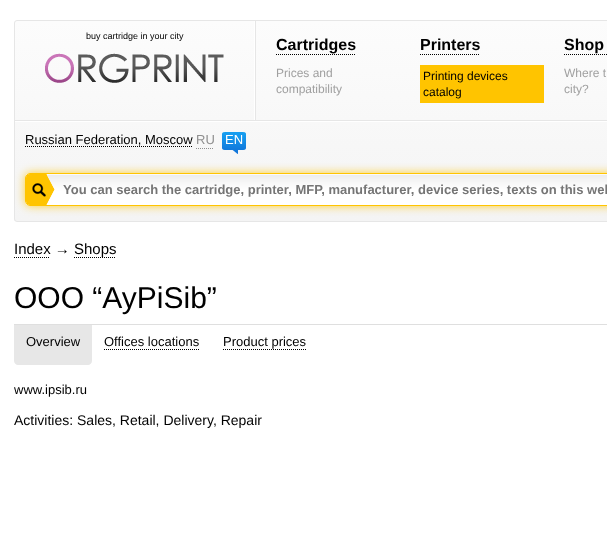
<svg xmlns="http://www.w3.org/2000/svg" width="607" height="535">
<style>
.a{font:9px Liberation Sans;fill:#000}
.b{font:bold 16px Liberation Sans;fill:#000}
.c{font:12px Liberation Sans;fill:#a0a0a0}
.d{font:12px Liberation Sans;fill:#000}
.e{font:13px Liberation Sans;fill:#000}
.f{font:13px Liberation Sans;fill:#8f8f8f}
.g{font:13px Liberation Sans;fill:#fff}
.h{font:bold 13px Liberation Sans;fill:#757575}
.i{font:15px Liberation Sans;fill:#000}
.j{font:30px Liberation Sans;fill:#000}
.k{font:14px Liberation Sans;fill:#000}
</style>
<defs>
<clipPath id="clip1"><rect x="14" y="20" width="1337" height="202" rx="3"/></clipPath>
<linearGradient id="g1" gradientUnits="userSpaceOnUse" x1="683" y1="21" x2="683" y2="221"><stop offset="0" stop-color="#fcfcfc"/><stop offset="1" stop-color="#f4f4f4"/></linearGradient>
</defs>
<rect width="100%" height="100%" fill="#fff"/>
<g clip-path="url(#clip1)">
<path fill="url(#g1)" d="M14 21h593v200H14z"/>
</g>
<rect fill="none" stroke="#e6e6e6" x="14.5" y="20.5" width="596" height="201" rx="2.5"/>
<path fill="#fff" d="M254 21h1v100H254z"/>
<path fill="#e6e6e6" d="M15 120h592v1H15z"/>
<image href="1.png" x="45" y="53" width="179" height="30"/>
<path fill="#e6e6e6" d="M255 21h1v100H255z"/>
<path fill="none" stroke="#000" stroke-dasharray="1 1" d="M276 54.5h80"/>
<path fill="none" stroke="#000" stroke-dasharray="1 1" d="M420 54.5h60"/>
<path fill="#ffc400" d="M420 65h124v38H420z"/>
<path fill="none" stroke="#000" stroke-dasharray="1 1" d="M564 54.5h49"/>
<path fill="#fff" d="M15 121h592v1H15z"/>
<path fill="none" stroke="#000" stroke-dasharray="1 1" d="M25 146.5h167"/>
<path fill="none" stroke="#8f8f8f" stroke-dasharray="1 1" d="M196 148.5h18"/>
<image href="2.png" x="222" y="132" width="24" height="22"/>
<rect fill="#ffc400cc" filter="blur(5px)" x="25" y="173" width="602" height="33" rx="5"/>
<rect fill="#fff" x="25" y="173" width="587" height="33" rx="5"/>
<image href="3.png" x="25" y="174" width="582" height="29"/>
<rect fill="none" stroke="#ffc400" x="25.5" y="173.5" width="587" height="32" rx="4.5"/>
<image href="4.png" x="26" y="174" width="29" height="31"/>
<path fill="none" stroke="#000" stroke-dasharray="1 1" d="M14 257.5h36"/>
<path fill="none" stroke="#000" stroke-dasharray="1 1" d="M74 257.5h42"/>
<path fill="#dfdfdf" d="M14 324h593v1H14z"/>
<path fill="#e7e7e7" d="M14 325h78v36c0 2-2 4-4 4h-70c-2 0-4-2-4-4z"/>
<path fill="none" stroke="#000" stroke-dasharray="1 1" d="M104 349.5h95"/>
<path fill="none" stroke="#000" stroke-dasharray="1 1" d="M223 349.5h83"/>
<text class="a" x="86" y="39">buy cartridge in your city</text>
<text class="b" x="276" y="50">Cartridges</text>
<text class="c" x="276" y="77">Prices and</text>
<text class="c" x="276" y="93">compatibility</text>
<text class="b" x="420" y="50">Printers</text>
<text class="d" x="423" y="80">Printing devices</text>
<text class="d" x="423" y="96">catalog</text>
<text class="b" x="564" y="50">Shop</text>
<text class="c" x="564" y="77">Where t</text>
<text class="c" x="564" y="93">city?</text>
<text class="e" x="25" y="144">Russian Federation, Moscow</text>
<text class="f" x="196" y="144">RU</text>
<text class="g" x="225" y="144">EN</text>
<text class="h" x="63" y="194">You can search the cartridge, printer, MFP, manufacturer, device series, texts on this web</text>
<text class="i" x="14" y="254">Index →</text>
<text class="i" x="74" y="254">Shops</text>
<text class="j" x="14" y="308">OOO “AyPiSib”</text>
<text class="e" x="26" y="346">Overview</text>
<text class="e" x="104" y="346">Offices locations</text>
<text class="e" x="223" y="346">Product prices</text>
<text class="e" x="14" y="394">www.ipsib.ru</text>
<text class="k" x="14" y="425">Activities: Sales, Retail, Delivery, Repair</text>
</svg>
